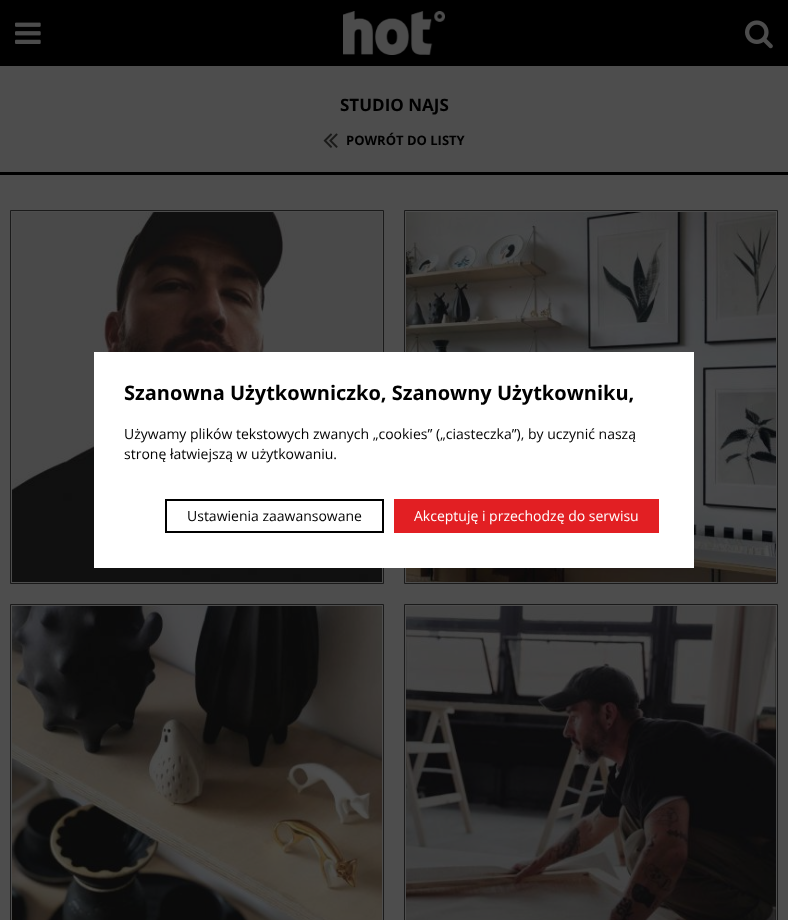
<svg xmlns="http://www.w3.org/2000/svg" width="788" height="920">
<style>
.a{font:bold 17px Open Sans;fill:#000}
.b{font:bold 13px Open Sans;fill:#000}
.c{font:bold 20px Open Sans;fill:#000}
.d{font:14px Open Sans;fill:#000}
.e{font:14px Open Sans;fill:#fff}
</style>
<rect width="100%" height="100%" fill="#4d4d4d"/>
<path fill="#000" d="M0 0h788v66H0z"/>
<image href="1.png" x="15" y="22" width="26" height="22"/>
<image href="2.png" x="343" y="11" width="102" height="44"/>
<image href="3.png" x="745" y="20" width="28" height="29"/>
<path fill="#000" d="M0 172h788v3H0z"/>
<image href="4.png" x="323" y="133" width="15" height="15"/>
<path fill="none" stroke="#1a1a1a" d="M10.5 210.5h373v373H10.5z"/>
<image href="5.png" x="12" y="212" width="370" height="370"/>
<path fill="none" stroke="#1a1a1a" d="M404.5 210.5h373v373H404.5z"/>
<image href="6.png" x="406" y="212" width="370" height="370"/>
<path fill="none" stroke="#1a1a1a" d="M10.5 604.5h373v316H10.5z"/>
<image href="7.png" x="12" y="606" width="370" height="314"/>
<path fill="none" stroke="#1a1a1a" d="M404.5 604.5h373v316H404.5z"/>
<image href="8.png" x="406" y="606" width="370" height="314"/>
<path fill="#fff" d="M94 352h600v216H94z"/>
<path fill="none" stroke="#000" stroke-width="2" d="M166 500h217v32H166z"/>
<path fill="#e21f23" d="M394 499h265v34H394z"/>
<text class="a" x="340" y="111">STUDIO NAJS</text>
<text class="b" x="346" y="145">POWRÓT DO LISTY</text>
<text class="c" x="124" y="400">Szanowna Użytkowniczko, Szanowny Użytkowniku,</text>
<text class="d" x="124" y="439">Używamy plików tekstowych zwanych „cookies” („ciasteczka”), by uczynić naszą</text>
<text class="d" x="124" y="459">stronę łatwiejszą w użytkowaniu.</text>
<text class="d" x="187" y="521">Ustawienia zaawansowane</text>
<text class="e" x="414" y="521">Akceptuję i przechodzę do serwisu</text>
</svg>
